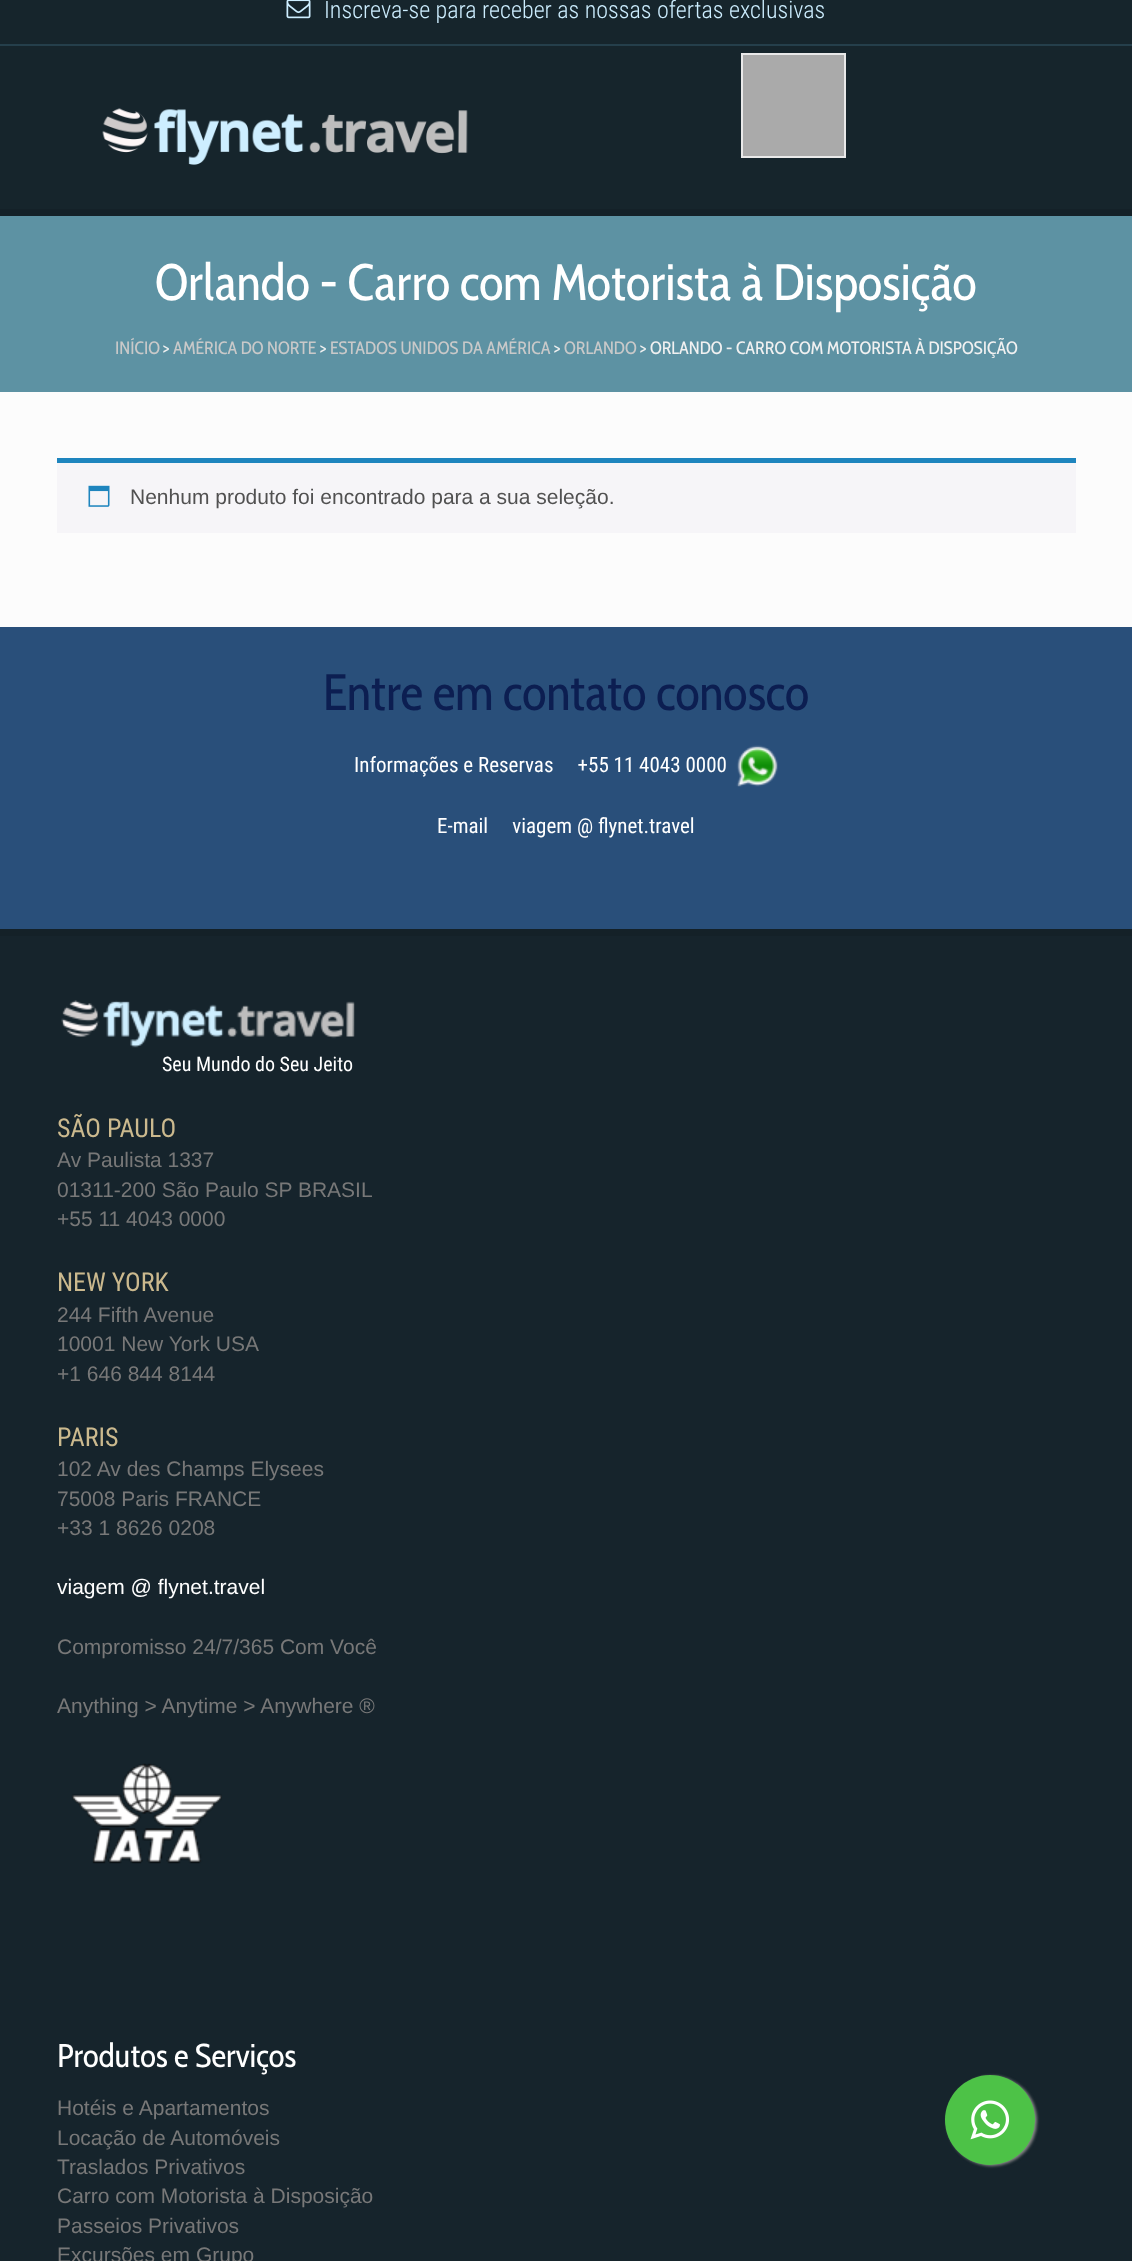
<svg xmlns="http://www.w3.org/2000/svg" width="1132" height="2261">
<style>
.a{font:300 24px Roboto Condensed;fill:#cdeeff}
.b{font:51px Cabin Condensed;fill:#fff}
.c{font:18px Cabin Condensed;fill:#c9c9c9}
.d{font:18px Cabin Condensed;fill:#f1f1f1}
.e{font:21px Liberation Sans;fill:#515151}
.f{font:51px Cabin Condensed;fill:#0c1e51}
.g{font:21px Roboto Condensed;fill:#fff}
.h{font:20px Roboto Condensed;fill:#fff}
.i{font:26px Roboto Condensed;fill:#cbb98e}
.j{font:21px Liberation Sans;fill:#787878}
.k{font:21px Liberation Sans;fill:#fff}
.l{font:33px Cabin Condensed;fill:#fff}
</style>
<rect width="100%" height="100%" fill="#142128"/>
<path fill="#16252c" d="M0 0h1132v209H0z"/>
<path fill="#253f4b" d="M0 44h1132v2H0z"/>
<image href="1.png" x="286" y="0" width="25" height="19"/>
<image href="2.png" x="102" y="108" width="366" height="57"/>
<path fill="#aaa" stroke="#e9e9e9" stroke-width="2" d="M742 54h103v103H742z"/>
<path fill="#5d92a3" d="M0 216h1132v176H0z"/>
<path fill="#fcfcfc" d="M0 392h1132v235H0z"/>
<path fill="#f6f5f8" d="M57 463h1019v70H57z"/>
<path fill="#1e85be" d="M57 458h1019v5H57z"/>
<image href="3.png" x="88" y="485" width="22" height="22"/>
<path fill="#294f7a" d="M0 627h1132v302H0z"/>
<image href="4.png" x="736" y="745" width="42" height="42"/>
<path fill="#16242c" d="M0 936h1132v1325H0z"/>
<image href="5.png" x="61" y="1000" width="294" height="48"/>
<image href="6.png" x="72" y="1763" width="150" height="101"/>
<rect fill="#888" filter="blur(1.5px)" x="947" y="2076" width="90" height="90" rx="45"/>
<circle fill="#4dc247" cx="990" cy="2120" r="45"/>
<image href="7.png" x="970" y="2100" width="40" height="40"/>
<text class="a" x="324" y="18">Inscreva-se para receber as nossas ofertas exclusivas</text>
<text class="b" x="155" y="300">Orlando - Carro com Motorista à Disposição</text>
<text class="c" x="115" y="354">INÍCIO</text>
<text class="d" x="163" y="354">&gt;</text>
<text class="c" x="173" y="354">AMÉRICA DO NORTE</text>
<text class="d" x="320" y="354">&gt;</text>
<text class="c" x="330" y="354">ESTADOS UNIDOS DA AMÉRICA</text>
<text class="d" x="554" y="354">&gt;</text>
<text class="c" x="564" y="354">ORLANDO</text>
<text class="d" x="640" y="354">&gt; ORLANDO - CARRO COM MOTORISTA À DISPOSIÇÃO</text>
<text class="e" x="130" y="504">Nenhum produto foi encontrado para a sua seleção.</text>
<text class="f" x="323" y="710">Entre em contato conosco</text>
<text class="g" xml:space="preserve" x="354" y="772">Informações e Reservas     +55 11 4043 0000</text>
<text class="g" xml:space="preserve" x="437" y="833">E-mail     viagem @ flynet.travel</text>
<text class="h" x="162" y="1071">Seu Mundo do Seu Jeito</text>
<text class="i" x="57" y="1137">SÃO PAULO</text>
<text class="j" x="57" y="1167">Av Paulista 1337</text>
<text class="j" x="57" y="1197">01311-200 São Paulo SP BRASIL</text>
<text class="j" x="57" y="1226">+55 11 4043 0000</text>
<text class="i" x="57" y="1291">NEW YORK</text>
<text class="j" x="57" y="1322">244 Fifth Avenue</text>
<text class="j" x="57" y="1351">10001 New York USA</text>
<text class="j" x="57" y="1381">+1 646 844 8144</text>
<text class="i" x="57" y="1446">PARIS</text>
<text class="j" x="57" y="1476">102 Av des Champs Elysees</text>
<text class="j" x="57" y="1506">75008 Paris FRANCE</text>
<text class="j" x="57" y="1535">+33 1 8626 0208</text>
<text class="k" x="57" y="1594">viagem @ flynet.travel</text>
<text class="j" x="57" y="1654">Compromisso 24/7/365 Com Você</text>
<text class="j" x="57" y="1713">Anything &gt; Anytime &gt; Anywhere ®</text>
<text class="l" x="57" y="2067">Produtos e Serviços</text>
<text class="j" x="57" y="2115">Hotéis e Apartamentos</text>
<text class="j" x="57" y="2145">Locação de Automóveis</text>
<text class="j" x="57" y="2174">Traslados Privativos</text>
<text class="j" x="57" y="2203">Carro com Motorista à Disposição</text>
<text class="j" x="57" y="2233">Passeios Privativos</text>
<text class="j" x="57" y="2262">Excursões em Grupo</text>
</svg>
